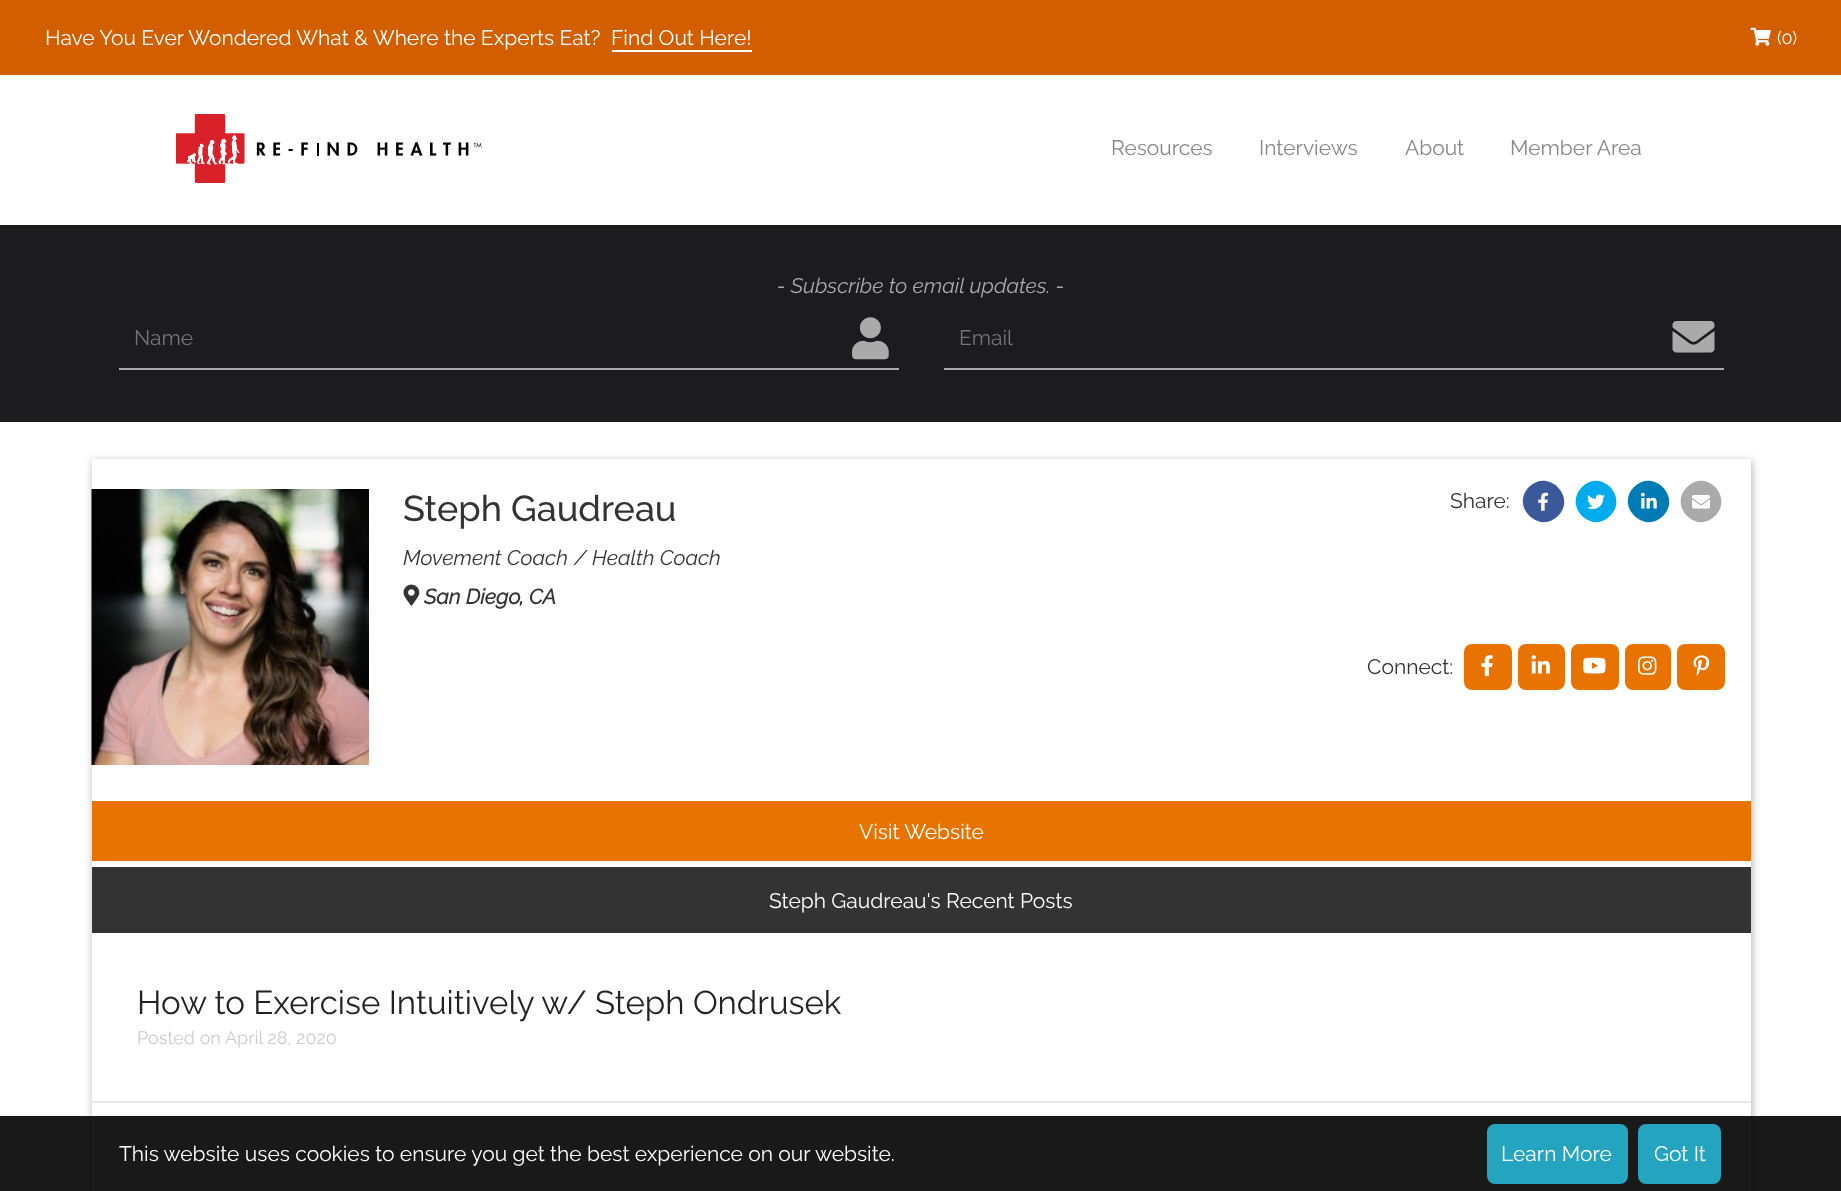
<svg xmlns="http://www.w3.org/2000/svg" width="1841" height="1191">
<style>
.a{font:21px Raleway;fill:#fff}
.b{font:18px Raleway;fill:#fff}
.c{font:21px Raleway;fill:#888}
.d{font:italic 100 21px Raleway;fill:#aaa}
.e{font:21px Raleway;fill:#757575}
.f{font:500 36px Raleway;fill:#333}
.g{font:21px Raleway;fill:#333}
.h{font:italic 100 21px Raleway;fill:#333}
.i{font:italic bold 21px Raleway;fill:#333}
.j{font:33px Raleway;fill:#222}
.k{font:18px Raleway;fill:#ccc}
</style>
<defs>
<clipPath id="clip1"><path d="M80 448h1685v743h-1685zm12 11h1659v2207h-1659z" clip-rule="evenodd"/></clipPath>
</defs>
<rect width="100%" height="100%" fill="#fff"/>
<path fill="#d25e00" d="M0 0h1841v75H0z"/>
<path fill="#fff" d="M612 50h140v2H612z"/>
<image href="1.png" x="1750" y="27" width="21" height="19"/>
<image href="2.png" x="176" y="114" width="306" height="69"/>
<path fill="#1c1c1e" d="M0 225h1841v197H0z"/>
<path fill="#aaa" d="M119 368h780v2H119z"/>
<image href="3.png" x="852" y="317" width="37" height="43"/>
<path fill="#aaa" d="M944 368h780v2H944z"/>
<image href="4.png" x="1672" y="321" width="43" height="32"/>
<g clip-path="url(#clip1)">
<path fill="#0000004d" filter="blur(4px)" d="M93 461h1659v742H93z"/>
</g>
<image href="5.png" x="91" y="489" width="278" height="276"/>
<path fill="#3b5998" d="M1529 487c19-19 48 10 29 29c-19 19-48-10-29-29z"/>
<image href="6.png" x="1538" y="492" width="10" height="19"/>
<path fill="#00aced" d="M1582 487c19-19 47 10 28 29c-19 19-47-10-28-29z"/>
<image href="7.png" x="1587" y="494" width="18" height="16"/>
<path fill="#007bb5" d="M1634 487c19-19 48 10 29 29c-19 19-48-10-29-29z"/>
<image href="8.png" x="1641" y="492" width="16" height="17"/>
<path fill="#aaa" d="M1687 487c19-19 47 10 28 29c-19 19-47-10-28-29z"/>
<image href="9.png" x="1692" y="495" width="18" height="14"/>
<image href="10.png" x="403" y="584" width="17" height="22"/>
<rect fill="#e97300" x="1464" y="644" width="48" height="46" rx="8"/>
<image href="11.png" x="1481" y="655" width="12" height="22"/>
<rect fill="#e97300" x="1518" y="644" width="47" height="46" rx="8"/>
<image href="12.png" x="1531" y="655" width="19" height="19"/>
<rect fill="#e97300" x="1571" y="644" width="48" height="46" rx="8"/>
<image href="13.png" x="1583" y="657" width="23" height="17"/>
<rect fill="#e97300" x="1625" y="644" width="46" height="46" rx="8"/>
<image href="14.png" x="1638" y="656" width="19" height="19"/>
<rect fill="#e97300" x="1677" y="644" width="48" height="46" rx="8"/>
<image href="15.png" x="1693" y="655" width="17" height="21"/>
<path fill="#e97300" d="M92 801h1659v60H92z"/>
<path fill="#333" d="M92 867h1659v66H92z"/>
<path fill="#fff" d="M1750 939h1v162H1750z"/>
<path fill="#e9e9e9" d="M92 1101h1659v2H92z"/>
<path fill="#fff" d="M1750 1103h1v88H1750z"/>
<path fill="#000000e6" d="M0 1116h1841v75H0z"/>
<rect fill="#25a4bf" x="1487" y="1124" width="141" height="60" rx="8"/>
<rect fill="#25a4bf" x="1638" y="1124" width="83" height="60" rx="8"/>
<text class="a" x="45" y="45">Have You Ever Wondered What &amp; Where the Experts Eat?</text>
<text class="a" x="611" y="45">Find Out Here!</text>
<text class="b" x="1777" y="44">(0)</text>
<text class="c" x="1111" y="155">Resources</text>
<text class="c" x="1259" y="155">Interviews</text>
<text class="c" x="1405" y="155">About</text>
<text class="c" x="1510" y="155">Member Area</text>
<text class="d" x="777" y="293">- Subscribe to email updates. -</text>
<text class="e" x="134" y="345">Name</text>
<text class="e" x="959" y="345">Email</text>
<text class="f" x="403" y="521">Steph Gaudreau</text>
<text class="g" x="1450" y="508">Share:</text>
<text class="h" x="403" y="565">Movement Coach</text>
<text class="h" x="574" y="565">/</text>
<text class="h" x="592" y="565">Health Coach</text>
<text class="i" x="424" y="604">San Diego, CA</text>
<text class="g" x="1367" y="674">Connect:</text>
<text class="a" x="859" y="839">Visit Website</text>
<text class="a" x="769" y="908">Steph Gaudreau's Recent Posts</text>
<text class="j" x="137" y="1014">How to Exercise Intuitively w/ Steph Ondrusek</text>
<text class="k" x="137" y="1044">Posted on April 28, 2020</text>
<text class="a" x="119" y="1161">This website uses cookies to ensure you get the best experience on our website.</text>
<text class="a" x="1501" y="1161">Learn More</text>
<text class="a" x="1654" y="1161">Got It</text>
</svg>
